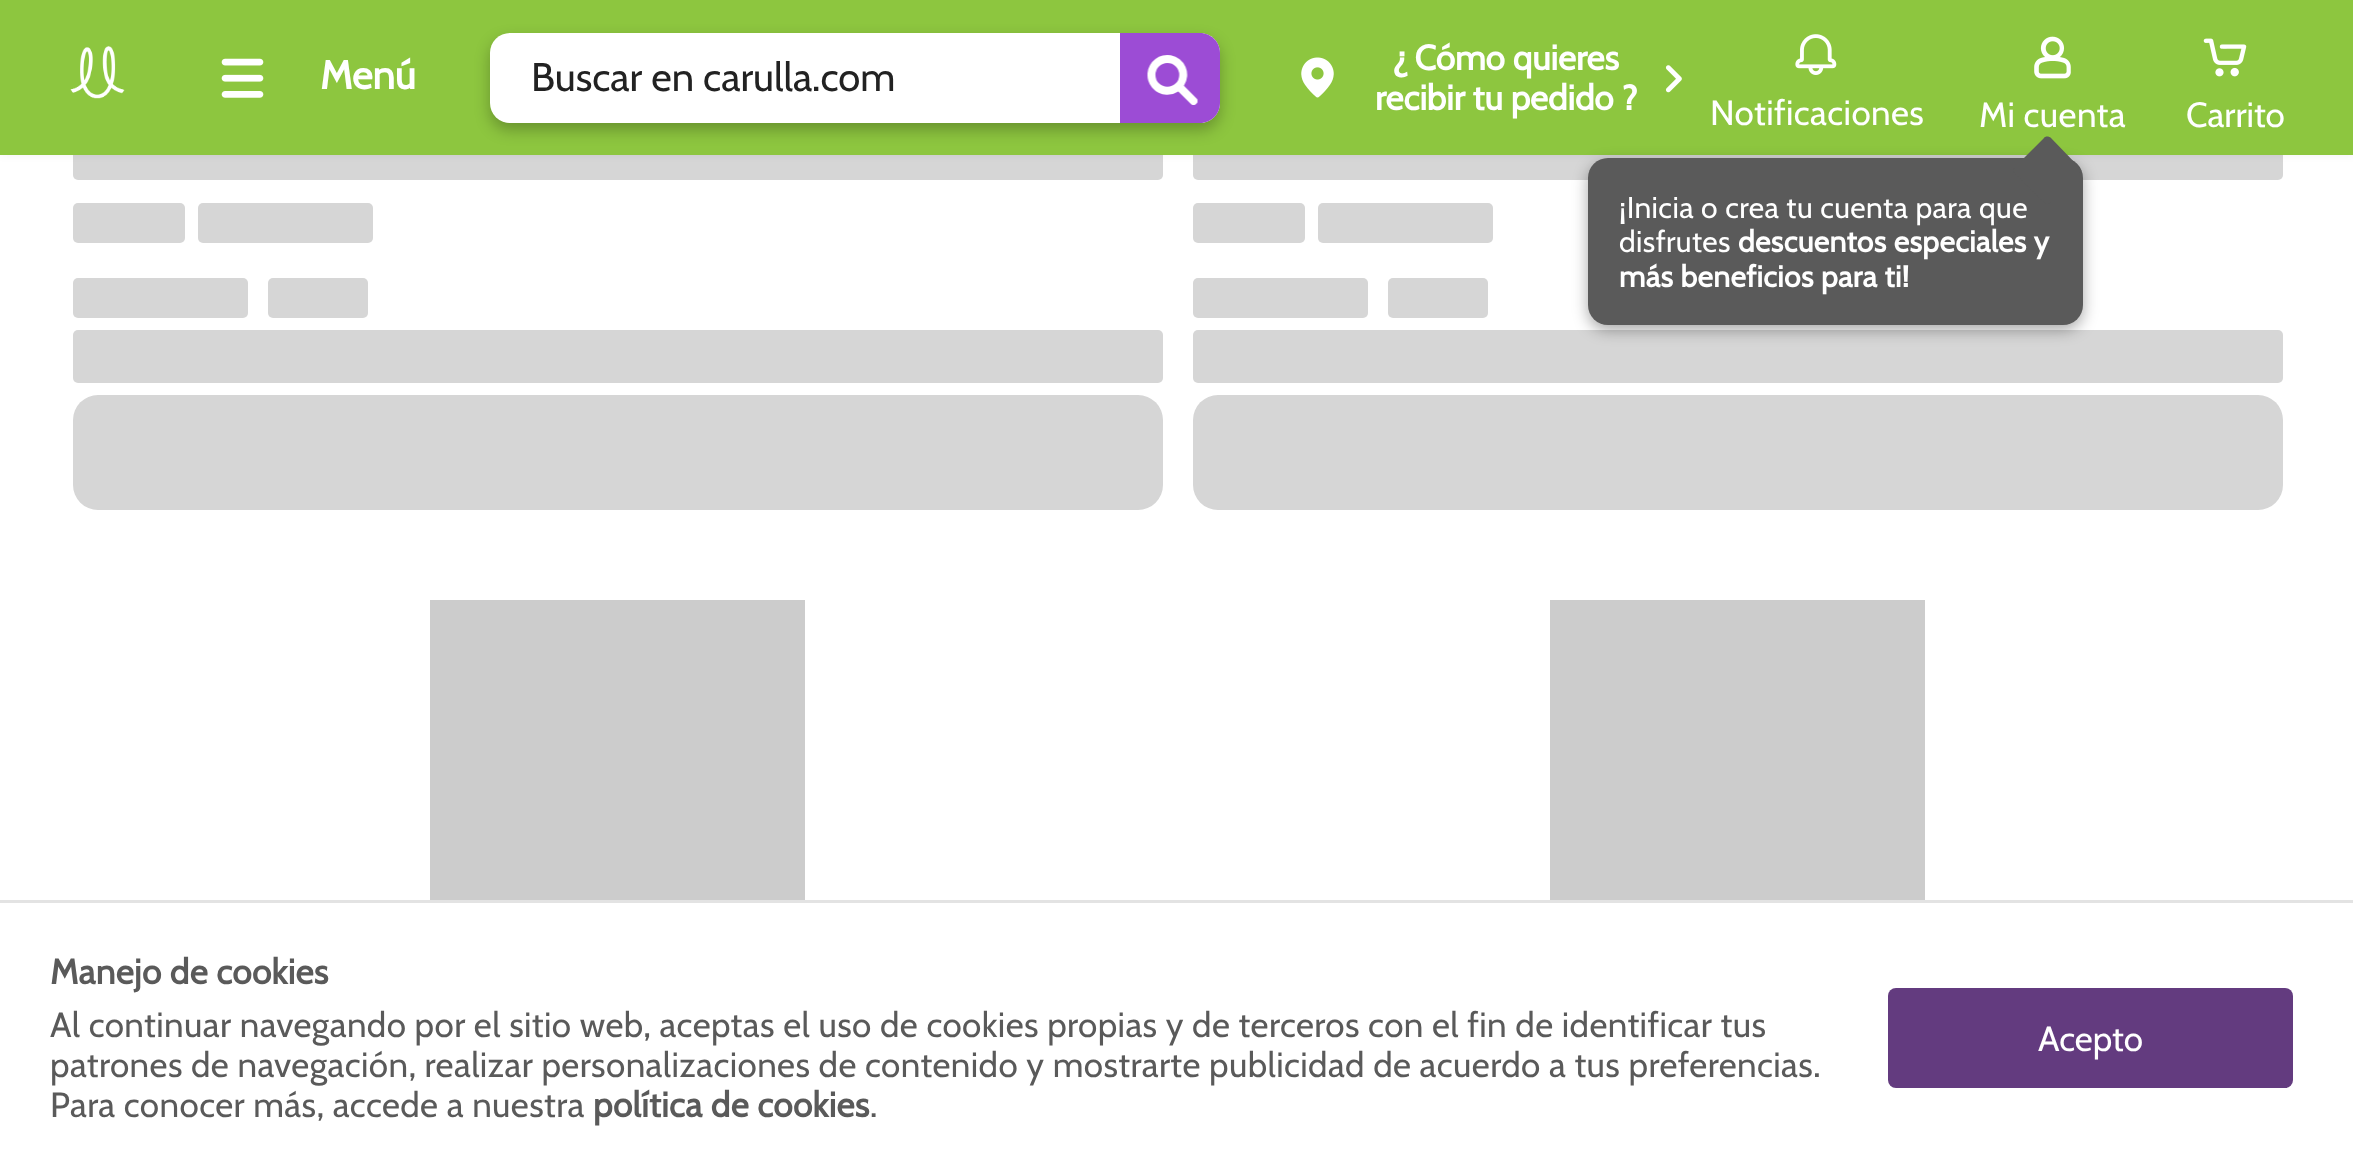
<svg xmlns="http://www.w3.org/2000/svg" width="2353" height="1174">
<style>
.a{font:bold 40px Cabin;fill:#fff}
.b{font:40px Cabin;fill:#222}
.c{font:bold 35px Cabin;fill:#fff}
.d{font:35px Cabin;letter-spacing:0.4px;fill:#fff}
.e{font:30px Cabin;letter-spacing:0.4px;fill:#fff}
.f{font:bold 30px Cabin;letter-spacing:0.4px;fill:#fff}
.g{font:35px Cabin;fill:#fff}
.h{font:bold 35px Cabin;letter-spacing:0.4px;fill:#5a5a5a}
.i{font:35px Cabin;letter-spacing:0.4px;fill:#5a5a5a}
</style>
<defs>
<clipPath id="clip1"><path d="M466 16h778v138h-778zm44 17h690c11 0 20 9 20 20v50c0 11-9 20-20 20h-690c-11 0-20-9-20-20v-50c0-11 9-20 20-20z" clip-rule="evenodd"/></clipPath>
</defs>
<rect width="100%" height="100%" fill="#fff"/>
<rect fill="#d6d6d6" x="73" y="65" width="1090" height="115" rx="5"/>
<rect fill="#d6d6d6" x="1193" y="65" width="1090" height="115" rx="5"/>
<path fill="#0000000d" filter="blur(4px)" d="M0 0h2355v155H0z"/>
<path fill="#8dc63f" d="M0 0h2353v155H0z"/>
<image href="1.png" x="70" y="46" width="55" height="53"/>
<image href="2.png" x="221" y="58" width="43" height="40"/>
<rect fill="#fff" x="490" y="33" width="730" height="90" rx="20"/>
<g clip-path="url(#clip1)">
<rect fill="#00000042" filter="blur(7.5px)" x="490" y="40" width="730" height="90" rx="20"/>
</g>
<path fill="#9c4cd5" d="M1120 33h80c11 0 20 9 20 20v50c0 11-9 20-20 20h-80z"/>
<image href="3.png" x="1147" y="55" width="51" height="50"/>
<image href="4.png" x="1301" y="57" width="33" height="41"/>
<image href="5.png" x="1665" y="65" width="17" height="28"/>
<image href="6.png" x="1795" y="34" width="42" height="41"/>
<image href="7.png" x="2034" y="36" width="37" height="43"/>
<rect fill="#d6d6d6" x="1193" y="330" width="1090" height="53" rx="5"/>
<rect fill="#00000057" filter="blur(7.5px)" x="1588" y="163" width="495" height="167" rx="20"/>
<rect fill="#5a5a5a" x="1588" y="158" width="495" height="167" rx="20"/>
<image href="8.png" x="2203" y="38" width="44" height="39"/>
<rect fill="#d6d6d6" x="73" y="203" width="112" height="40" rx="5"/>
<rect fill="#d6d6d6" x="198" y="203" width="175" height="40" rx="5"/>
<rect fill="#d6d6d6" x="73" y="278" width="175" height="40" rx="5"/>
<rect fill="#d6d6d6" x="268" y="278" width="100" height="40" rx="5"/>
<rect fill="#d6d6d6" x="73" y="330" width="1090" height="53" rx="5"/>
<rect fill="#d6d6d6" x="73" y="395" width="1090" height="115" rx="25"/>
<rect fill="#d6d6d6" x="1193" y="203" width="112" height="40" rx="5"/>
<rect fill="#d6d6d6" x="1318" y="203" width="175" height="40" rx="5"/>
<rect fill="#d6d6d6" x="1193" y="278" width="175" height="40" rx="5"/>
<rect fill="#d6d6d6" x="1388" y="278" width="100" height="40" rx="5"/>
<rect fill="#d6d6d6" x="1193" y="395" width="1090" height="115" rx="25"/>
<path fill="#ccc" d="M430 600h375v300H430z"/>
<path fill="#ccc" d="M1550 600h375v300H1550z"/>
<path fill="#e3e3e3" d="M0 900h2353v3H0z"/>
<rect fill="#633b7f" x="1888" y="988" width="405" height="100" rx="8"/>
<text class="a" x="320" y="89">Menú</text>
<text class="b" x="531" y="91">Buscar en carulla.com</text>
<text class="c" x="1393" y="70">¿ Cómo quieres</text>
<text class="c" x="1375" y="110">recibir tu pedido ?</text>
<text class="d" x="1710" y="125">Notificaciones</text>
<text class="d" x="1979" y="127">Mi cuenta</text>
<text class="e" x="1619" y="218">¡Inicia o crea tu cuenta para que</text>
<path fill="#5a5a5a" d="M2051 138l28 29c2 2 2 5 0 7l-28 28c-2 2-6 2-7 0l-29-28c-2-2-2-5 0-7l29-29c1-2 5-2 7 0z"/>
<text class="e" x="1619" y="252">disfrutes</text>
<text class="f" x="1738" y="252">descuentos especiales y</text>
<text class="f" x="1619" y="287">más beneficios para ti!</text>
<text class="g" x="2186" y="127">Carrito</text>
<text class="h" x="50" y="984">Manejo de cookies</text>
<text class="i" x="50" y="1037">Al continuar navegando por el sitio web, aceptas el uso de cookies propias y de terceros con el fin de identificar tus</text>
<text class="i" x="50" y="1077">patrones de navegación, realizar personalizaciones de contenido y mostrarte publicidad de acuerdo a tus preferencias.</text>
<text class="i" x="50" y="1117">Para conocer más, accede a nuestra</text>
<text class="h" x="593" y="1117">política de cookies</text>
<text class="i" x="870" y="1117">.</text>
<text class="g" x="2038" y="1051">Acepto</text>
</svg>
